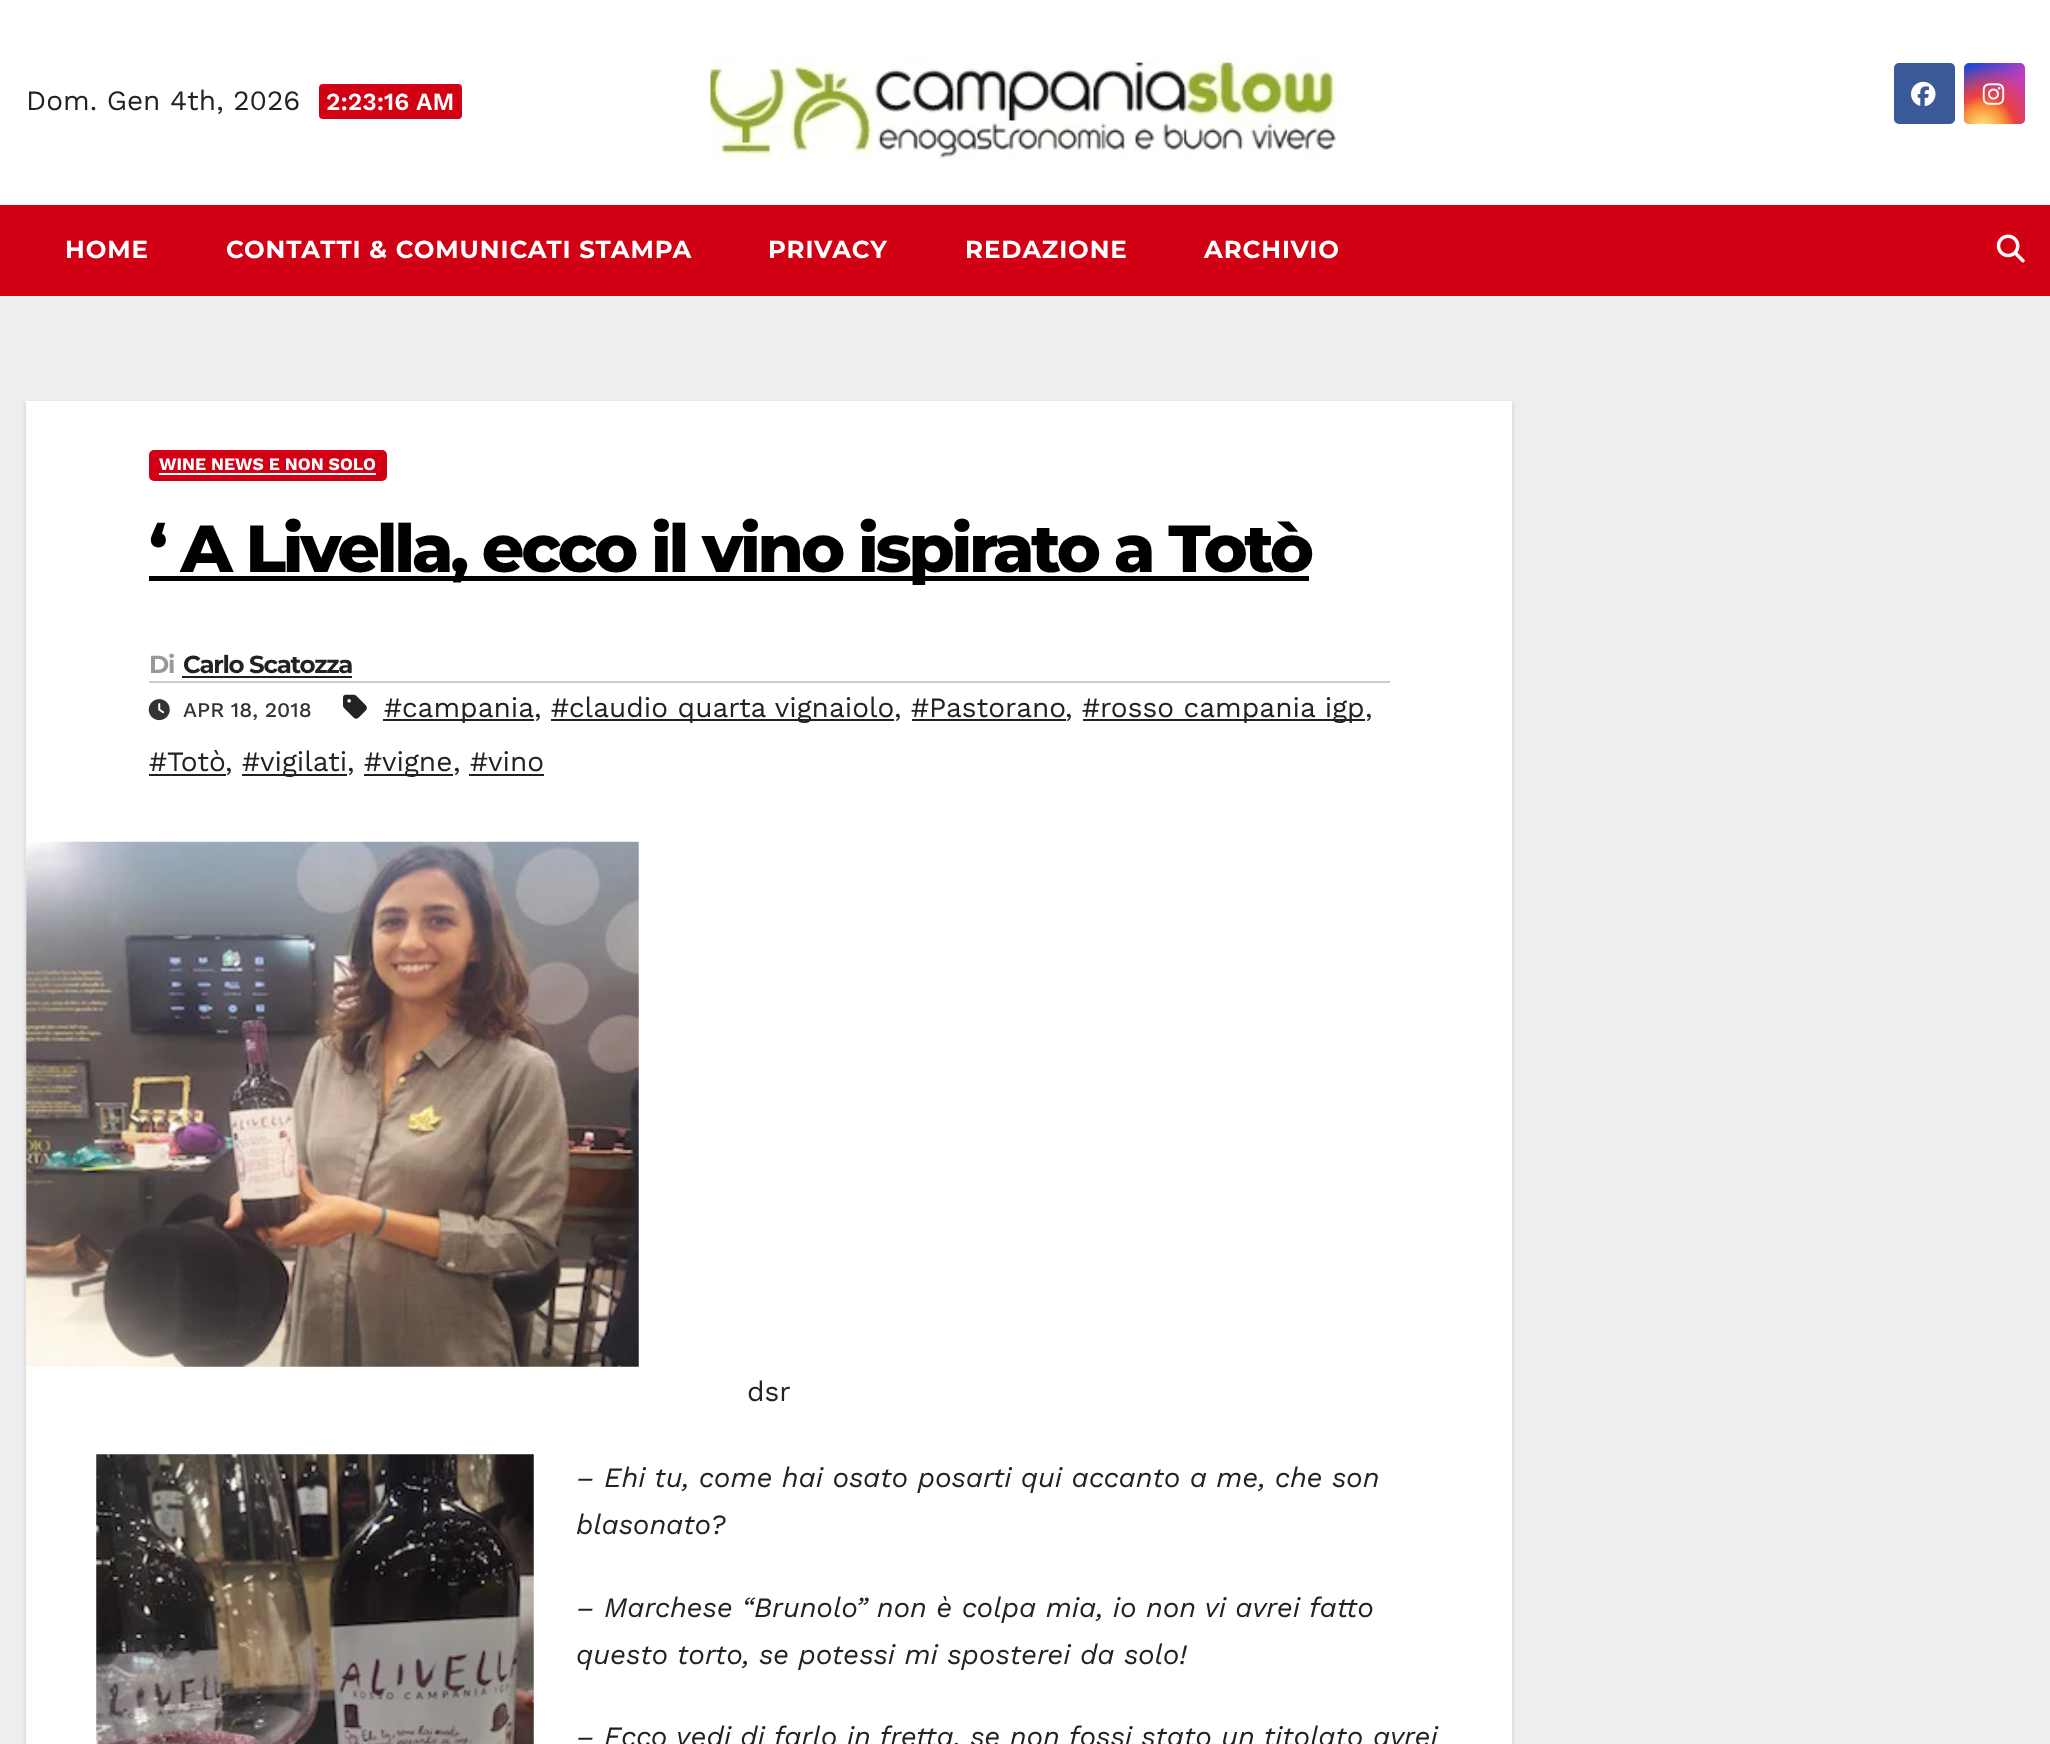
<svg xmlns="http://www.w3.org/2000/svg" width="2050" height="1744">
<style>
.a{font:28px Work Sans;fill:#222}
.b{font:600 24.5px Work Sans;fill:#fff}
.c{font:bold 24.5px Montserrat;letter-spacing:0.9px;fill:#fff}
.d{font:bold 17.5px Work Sans;fill:#fff}
.e{font:800 66.5px Montserrat;letter-spacing:-3.3px;fill:#000}
.f{font:bold 24.5px Montserrat;letter-spacing:-1.25px;fill:#999}
.g{font:bold 24.5px Montserrat;letter-spacing:-1.25px;fill:#222}
.h{font:500 21px Work Sans;fill:#333}
.i{font:italic 28px Work Sans;fill:#222}
</style>
<defs>
<linearGradient id="g1" gradientUnits="userSpaceOnUse" x1="1964" y1="63" x2="2025" y2="124"><stop offset="0.12" stop-color="#234bd7"/><stop offset="0.58" stop-color="#c33cbe"/></linearGradient>
<radialGradient id="g2" gradientUnits="userSpaceOnUse" cx="1983" cy="128" r="77"><stop offset="0" stop-color="#ffe17d"/><stop offset="0.1" stop-color="#ffcd69"/><stop offset="0.28" stop-color="#fa9137"/><stop offset="0.42" stop-color="#eb4141"/><stop offset="0.82" stop-color="#eb4141" stop-opacity="0"/></radialGradient>
</defs>
<rect width="100%" height="100%" fill="#eee"/>
<path fill="#fff" d="M0 0h2050v205H0z"/>
<rect fill="#d10014" x="319" y="84" width="143" height="35" rx="4"/>
<image href="1.png" x="710" y="58" width="630" height="102"/>
<rect fill="#3b5998" x="1894" y="63" width="61" height="61" rx="5"/>
<image href="2.png" x="1911" y="81" width="25" height="26"/>
<rect fill="url(#g1)" x="1964" y="63" width="61" height="61" rx="5"/>
<rect fill="url(#g2)" x="1964" y="63" width="61" height="61" rx="5"/>
<image href="3.png" x="1982" y="83" width="23" height="22"/>
<path fill="#d10014" d="M0 205h2050v91H0z"/>
<image href="4.png" x="1996" y="234" width="29" height="29"/>
<path fill="#00000026" filter="blur(2.5px)" d="M26 403h1486v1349H26z"/>
<path fill="#fff" d="M26 401h1486v1343H26z"/>
<rect fill="#d10014" x="149" y="450" width="238" height="31" rx="5"/>
<path fill="#fff" d="M159 473h217v2H159z"/>
<path fill="#000" d="M149 576h1160v5H149z"/>
<path fill="#ccc" d="M149 681h1241v2H149z"/>
<path fill="#212121" d="M182 676h170v2H182z"/>
<image href="5.png" x="343" y="694" width="24" height="25"/>
<path fill="#212121" d="M383 719h151v2H383z"/>
<path fill="#212121" d="M551 719h343v2H551z"/>
<path fill="#212121" d="M912 719h154v2H912z"/>
<path fill="#212121" d="M1083 719h282v2H1083z"/>
<path fill="#212121" d="M149 774h77v2H149z"/>
<path fill="#212121" d="M242 774h105v2H242z"/>
<path fill="#212121" d="M364 774h89v2H364z"/>
<path fill="#212121" d="M469 774h75v2H469z"/>
<image href="6.png" x="148" y="699" width="22" height="22"/>
<image href="7.png" x="26" y="841" width="613" height="526"/>
<image href="8.png" x="96" y="1454" width="438" height="290"/>
<text class="a" x="26" y="110">Dom. Gen 4th, 2026</text>
<text class="b" x="326" y="110">2:23:16 AM</text>
<text class="c" x="65" y="258">HOME</text>
<text class="c" x="226" y="258">CONTATTI &amp; COMUNICATI STAMPA</text>
<text class="c" x="768" y="258">PRIVACY</text>
<text class="c" x="965" y="258">REDAZIONE</text>
<text class="c" x="1204" y="258">ARCHIVIO</text>
<text class="d" x="159" y="470">WINE NEWS E NON SOLO</text>
<text class="e" x="149" y="572">‘ A Livella, ecco il vino ispirato a Totò</text>
<text class="f" x="149" y="673">Di</text>
<text class="g" x="183" y="673">Carlo Scatozza</text>
<text class="a" x="384" y="717">#campania</text>
<text class="a" x="534" y="717">,</text>
<text class="a" x="551" y="717">#claudio quarta vignaiolo</text>
<text class="a" x="894" y="717">,</text>
<text class="a" x="911" y="717">#Pastorano</text>
<text class="a" x="1065" y="717">,</text>
<text class="a" x="1082" y="717">#rosso campania igp</text>
<text class="a" x="1365" y="717">,</text>
<text class="a" x="149" y="771">#Totò</text>
<text class="a" x="225" y="771">,</text>
<text class="a" x="242" y="771">#vigilati</text>
<text class="a" x="347" y="771">,</text>
<text class="a" x="364" y="771">#vigne</text>
<text class="a" x="453" y="771">,</text>
<text class="a" x="470" y="771">#vino</text>
<text class="h" x="183" y="717">APR 18, 2018</text>
<text class="a" x="747" y="1401">dsr</text>
<text class="i" x="576" y="1487">– Ehi tu, come hai osato posarti qui accanto a me, che son</text>
<text class="i" x="576" y="1534">blasonato?</text>
<text class="i" x="576" y="1617">– Marchese “Brunolo” non è colpa mia, io non vi avrei fatto</text>
<text class="i" x="576" y="1664">questo torto, se potessi mi sposterei da solo!</text>
<text class="i" x="576" y="1746">– Ecco vedi di farlo in fretta, se non fossi stato un titolato avrei</text>
</svg>
